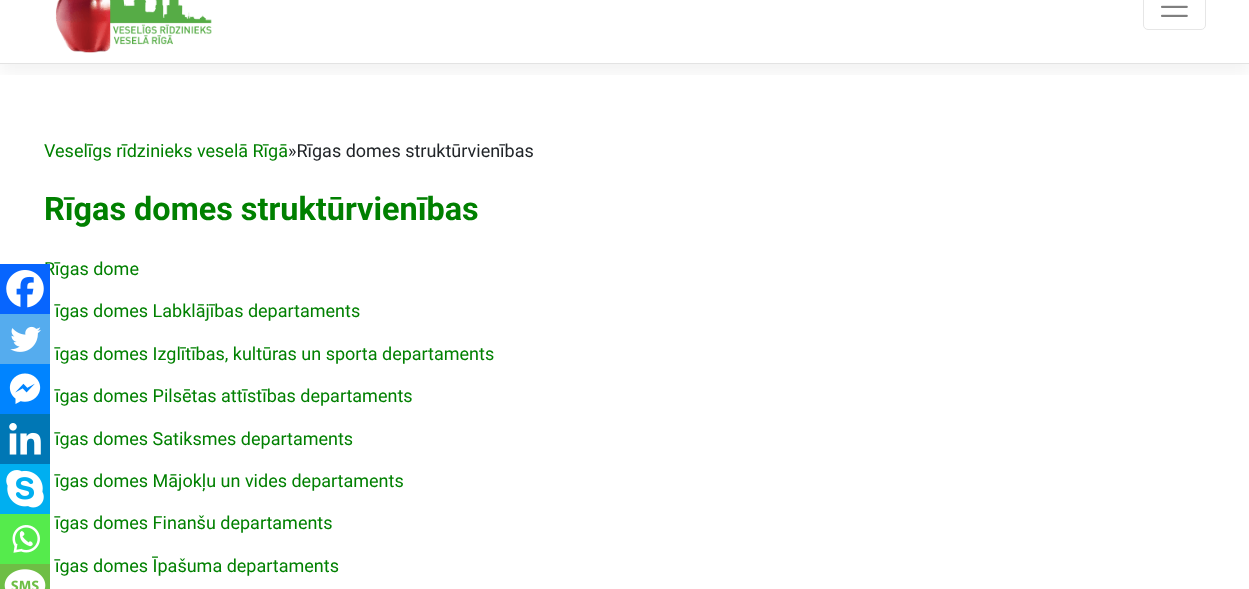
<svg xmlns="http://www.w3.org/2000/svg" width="1249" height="589">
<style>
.a{font:18px Roboto;fill:#008000}
.b{font:18px Roboto;fill:#212529}
.c{font:bold 32.4px Roboto;fill:#008000}
</style>
<defs>
<clipPath id="clip1"><path d="M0 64h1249v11H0z"/></clipPath>
</defs>
<rect width="100%" height="100%" fill="#fff"/>
<g clip-path="url(#clip1)">
<path fill="#0000000d" filter="blur(9px)" d="M0 -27h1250v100H0z"/>
</g>
<path fill="#e3e3e3" d="M0 63h1249v1H0z"/>
<image href="1.png" x="55" y="0" width="157" height="53"/>
<rect fill="none" stroke="#e6e6e6" x="1143.5" y="-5.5" width="62" height="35" rx="4.5"/>
<image href="2.png" x="1161" y="5" width="27" height="12"/>
<path fill="#55acee" d="M0 314h50v50H0z"/>
<image href="4.png" x="10" y="326" width="31" height="26"/>
<path fill="#0084ff" d="M0 364h50v50H0z"/>
<image href="5.png" x="9" y="373" width="32" height="31"/>
<path fill="#0077b5" d="M0 414h50v50H0z"/>
<image href="6.png" x="9" y="423" width="32" height="32"/>
<path fill="#00aff0" d="M0 464h50v50H0z"/>
<image href="7.png" x="6" y="470" width="38" height="38"/>
<path fill="#55eb4c" d="M0 514h50v50H0z"/>
<image href="8.png" x="12" y="525" width="28" height="28"/>
<path fill="#6ebe45" d="M0 564h50v25H0z"/>
<image href="9.png" x="4" y="569" width="42" height="20"/>
<text class="a" x="44" y="157">Veselīgs rīdzinieks veselā Rīgā</text>
<text class="b" x="288" y="157">»Rīgas domes struktūrvienības</text>
<text class="c" x="44" y="220">Rīgas domes struktūrvienības</text>
<text class="a" x="44" y="275">Rīgas dome</text>
<path fill="#0765fe" d="M0 264h50v50H0z"/>
<image href="3.png" x="6" y="270" width="38" height="38"/>
<text class="a" x="55" y="317">īgas domes Labklājības departaments</text>
<text class="a" x="55" y="360">īgas domes Izglītības, kultūras un sporta departaments</text>
<text class="a" x="55" y="402">īgas domes Pilsētas attīstības departaments</text>
<text class="a" x="55" y="445">īgas domes Satiksmes departaments</text>
<text class="a" x="55" y="487">īgas domes Mājokļu un vides departaments</text>
<text class="a" x="55" y="529">īgas domes Finanšu departaments</text>
<text class="a" x="55" y="572">īgas domes Īpašuma departaments</text>
</svg>
